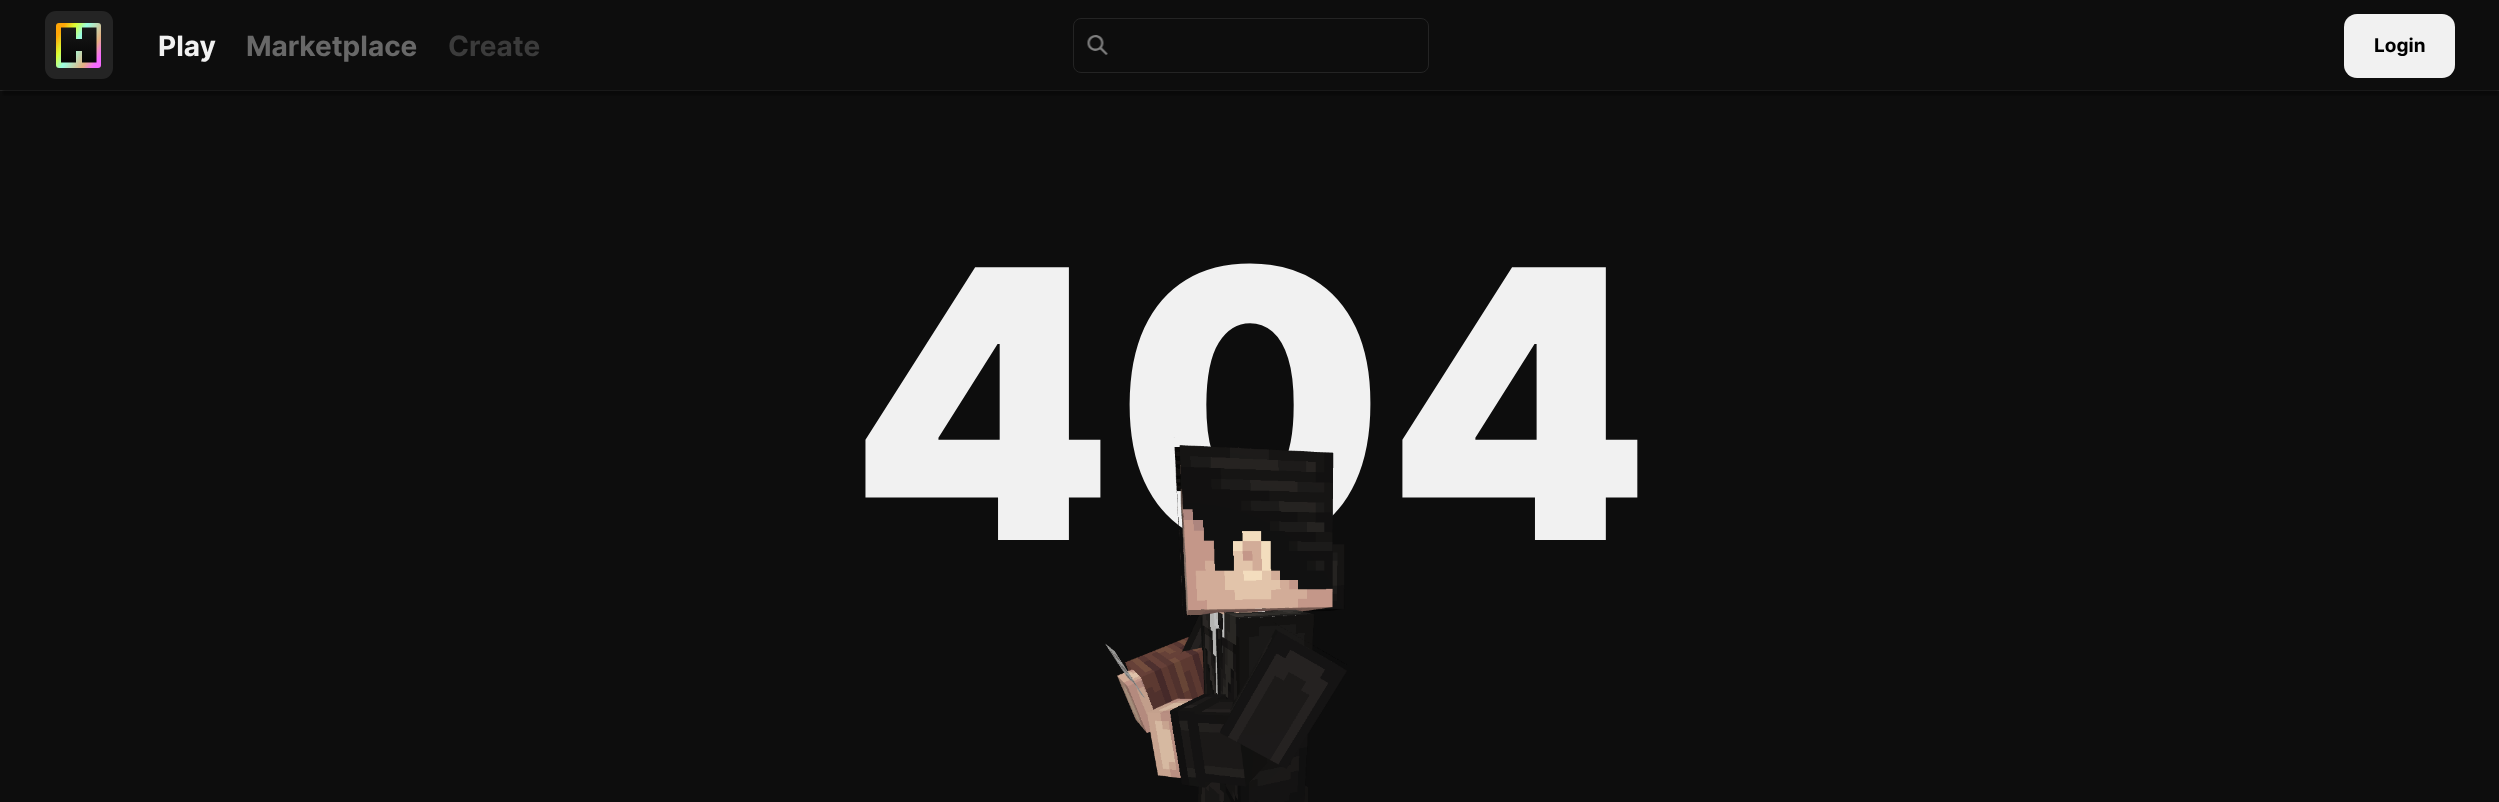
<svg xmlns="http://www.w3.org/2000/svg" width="2499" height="802">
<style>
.a{font:italic bold 28px Inter;fill:#f1f1f1}
.b{font:italic bold 28px Inter;fill:#686868}
.c{font:italic bold 28px Inter;fill:#3b3b3b}
.d{font:italic bold 19px Inter;fill:#000}
.e{font:italic 900 375px Inter;fill:#f1f1f1}
</style>
<defs>
<clipPath id="clip1"><path d="M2 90h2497v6H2z"/></clipPath>
<linearGradient id="g1" gradientUnits="userSpaceOnUse" x1="58" y1="35" x2="98" y2="59"><stop offset="0" stop-color="#ffa607"/><stop offset="0.21" stop-color="#daff34"/><stop offset="0.42" stop-color="#99ffe3"/><stop offset="0.8" stop-color="#e7b181"/><stop offset="1" stop-color="#f66aff"/></linearGradient>
<linearGradient id="g2" gradientUnits="userSpaceOnUse" x1="79" y1="27" x2="79" y2="63"><stop offset="0" stop-color="#181818"/><stop offset="1" stop-color="#050505"/></linearGradient>
</defs>
<rect width="100%" height="100%" fill="#0d0d0d"/>
<path fill="#242424" d="M0 90h2499v1H0z"/>
<g clip-path="url(#clip1)">
<path fill="#0000004d" filter="blur(1px)" d="M3 10h2495v85H3z"/>
</g>
<rect fill="#242424" x="45" y="11" width="68" height="68" rx="11"/>
<rect fill="url(#g1)" x="56" y="23" width="45" height="45" rx="3"/>
<path fill="url(#g2)" d="M73 27.5h-12v35h15v-11.5h6v11.5h14.5v-35h-14.5v11.5h-6v-11.5z"/>
<rect fill="none" stroke="#242424" x="1073.5" y="18.5" width="355" height="54" rx="7.5"/>
<image href="1.png" x="1087" y="35" width="21" height="20"/>
<rect fill="#f1f1f1" x="2344" y="14" width="111" height="64" rx="13"/>
<text class="a" x="158" y="56">Play</text>
<text class="b" x="246" y="56">Marketplace</text>
<text class="c" x="448" y="56">Create</text>
<text class="d" x="2374" y="52">Login</text>
<text class="e" x="850" y="540">404</text>
<image href="2.png" x="1105" y="437" width="242" height="365"/>
</svg>
